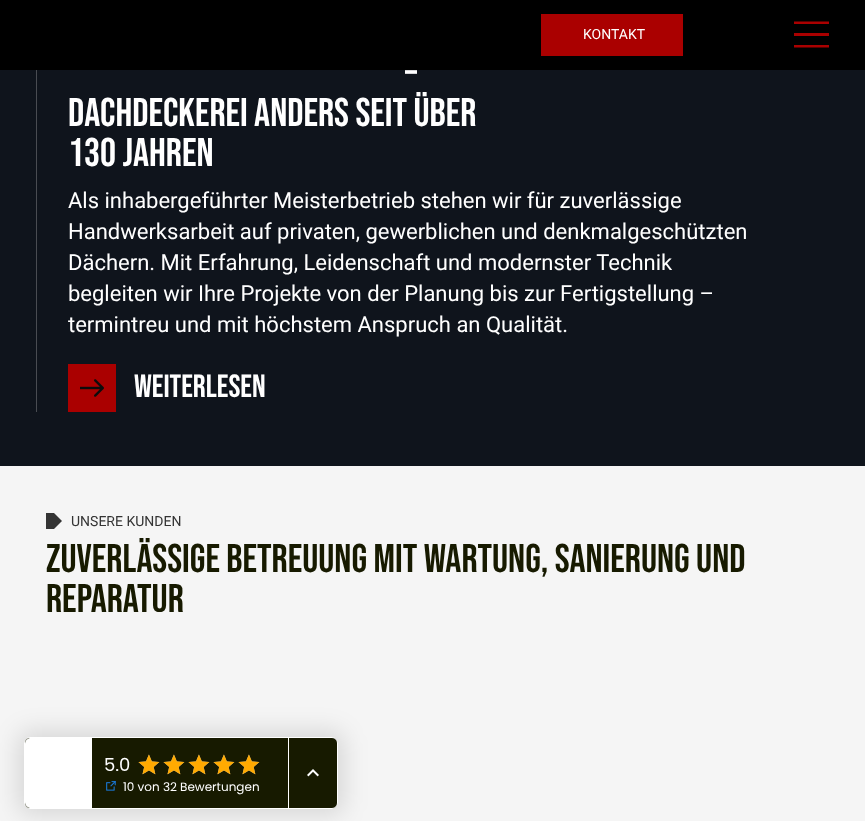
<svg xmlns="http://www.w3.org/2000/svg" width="865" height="821">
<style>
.a{font:14px Roboto;fill:#fff}
.b{font:40px Bebas Neue;fill:#fff}
.c{font:22px Roboto;fill:#fff}
.d{font:32px Bebas Neue;fill:#fff}
.e{font:14px Roboto;fill:#343434}
.f{font:40px Bebas Neue;fill:#171a00}
.g{font:18px Poppins;fill:#fff}
.h{font:12px Poppins;fill:#fff}
</style>
<rect width="100%" height="100%" fill="#f5f5f5"/>
<path fill="#000" d="M0 0h865v70H0z"/>
<path fill="#a00" d="M541 14h142v42H541z"/>
<path fill="#a00" fill-rule="evenodd" d="M829 24h-35v-2.5h35zm0 12h-35v-3h35zm0 11.5h-35v-2.5h35z"/>
<path fill="#0f141c" d="M0 70h865v396H0z"/>
<path fill="#494c52" d="M36 70h1v342H36z"/>
<path fill="#a00" d="M68 364h48v48H68z"/>
<image href="1.png" x="80" y="379" width="24" height="18"/>
<path fill="#343434" d="M54 529l8-8l-8-8h-8v16z"/>
<rect fill="#0000001f" filter="blur(12px)" x="18" y="731" width="326" height="84" rx="12"/>
<rect fill="#171a00" stroke="#fff" x="24.5" y="737.5" width="313" height="71" rx="5.5"/>
<path fill="#fff" d="M31 738h61v70h-61c-3.5 0-6-2.5-6-6v-58c0-3.5 2.5-6 6-6z"/>
<path fill="#fff" d="M288 738h1v70H288z"/>
<image href="2.png" x="138" y="754" width="22" height="21"/>
<image href="3.png" x="138" y="754" width="22" height="21"/>
<image href="2.png" x="163" y="754" width="22" height="21"/>
<image href="3.png" x="163" y="754" width="22" height="21"/>
<image href="2.png" x="188" y="754" width="22" height="21"/>
<image href="3.png" x="188" y="754" width="22" height="21"/>
<image href="2.png" x="213" y="754" width="22" height="21"/>
<image href="3.png" x="213" y="754" width="22" height="21"/>
<image href="2.png" x="238" y="754" width="22" height="21"/>
<image href="3.png" x="238" y="754" width="22" height="21"/>
<image href="4.png" x="106" y="781" width="10" height="10"/>
<image href="5.png" x="307" y="769" width="12" height="8"/>
<text class="a" x="583" y="39">KONTAKT</text>
<text class="b" x="405" y="86">–</text>
<text class="b" x="68" y="126">Dachdeckerei Anders seit über</text>
<text class="b" x="68" y="166">130 Jahren</text>
<text class="c" x="68" y="208">Als inhabergeführter Meisterbetrieb stehen wir für zuverlässige</text>
<text class="c" x="68" y="239">Handwerksarbeit auf privaten, gewerblichen und denkmalgeschützten</text>
<text class="c" x="68" y="270">Dächern. Mit Erfahrung, Leidenschaft und modernster Technik</text>
<text class="c" x="68" y="301">begleiten wir Ihre Projekte von der Planung bis zur Fertigstellung –</text>
<text class="c" x="68" y="332">termintreu und mit höchstem Anspruch an Qualität.</text>
<text class="d" x="134" y="397">WEITERLESEN</text>
<text class="e" x="71" y="526">UNSERE KUNDEN</text>
<text class="f" x="46" y="572">Zuverlässige Betreuung MIT Wartung, Sanierung und</text>
<text class="f" x="46" y="612">Reparatur</text>
<path fill="#f5f5f5" d="M157 612h5v1H157z"/>
<text class="g" x="104" y="771">5.0</text>
<text class="h" x="123" y="791">10 von 32 Bewertungen</text>
</svg>
